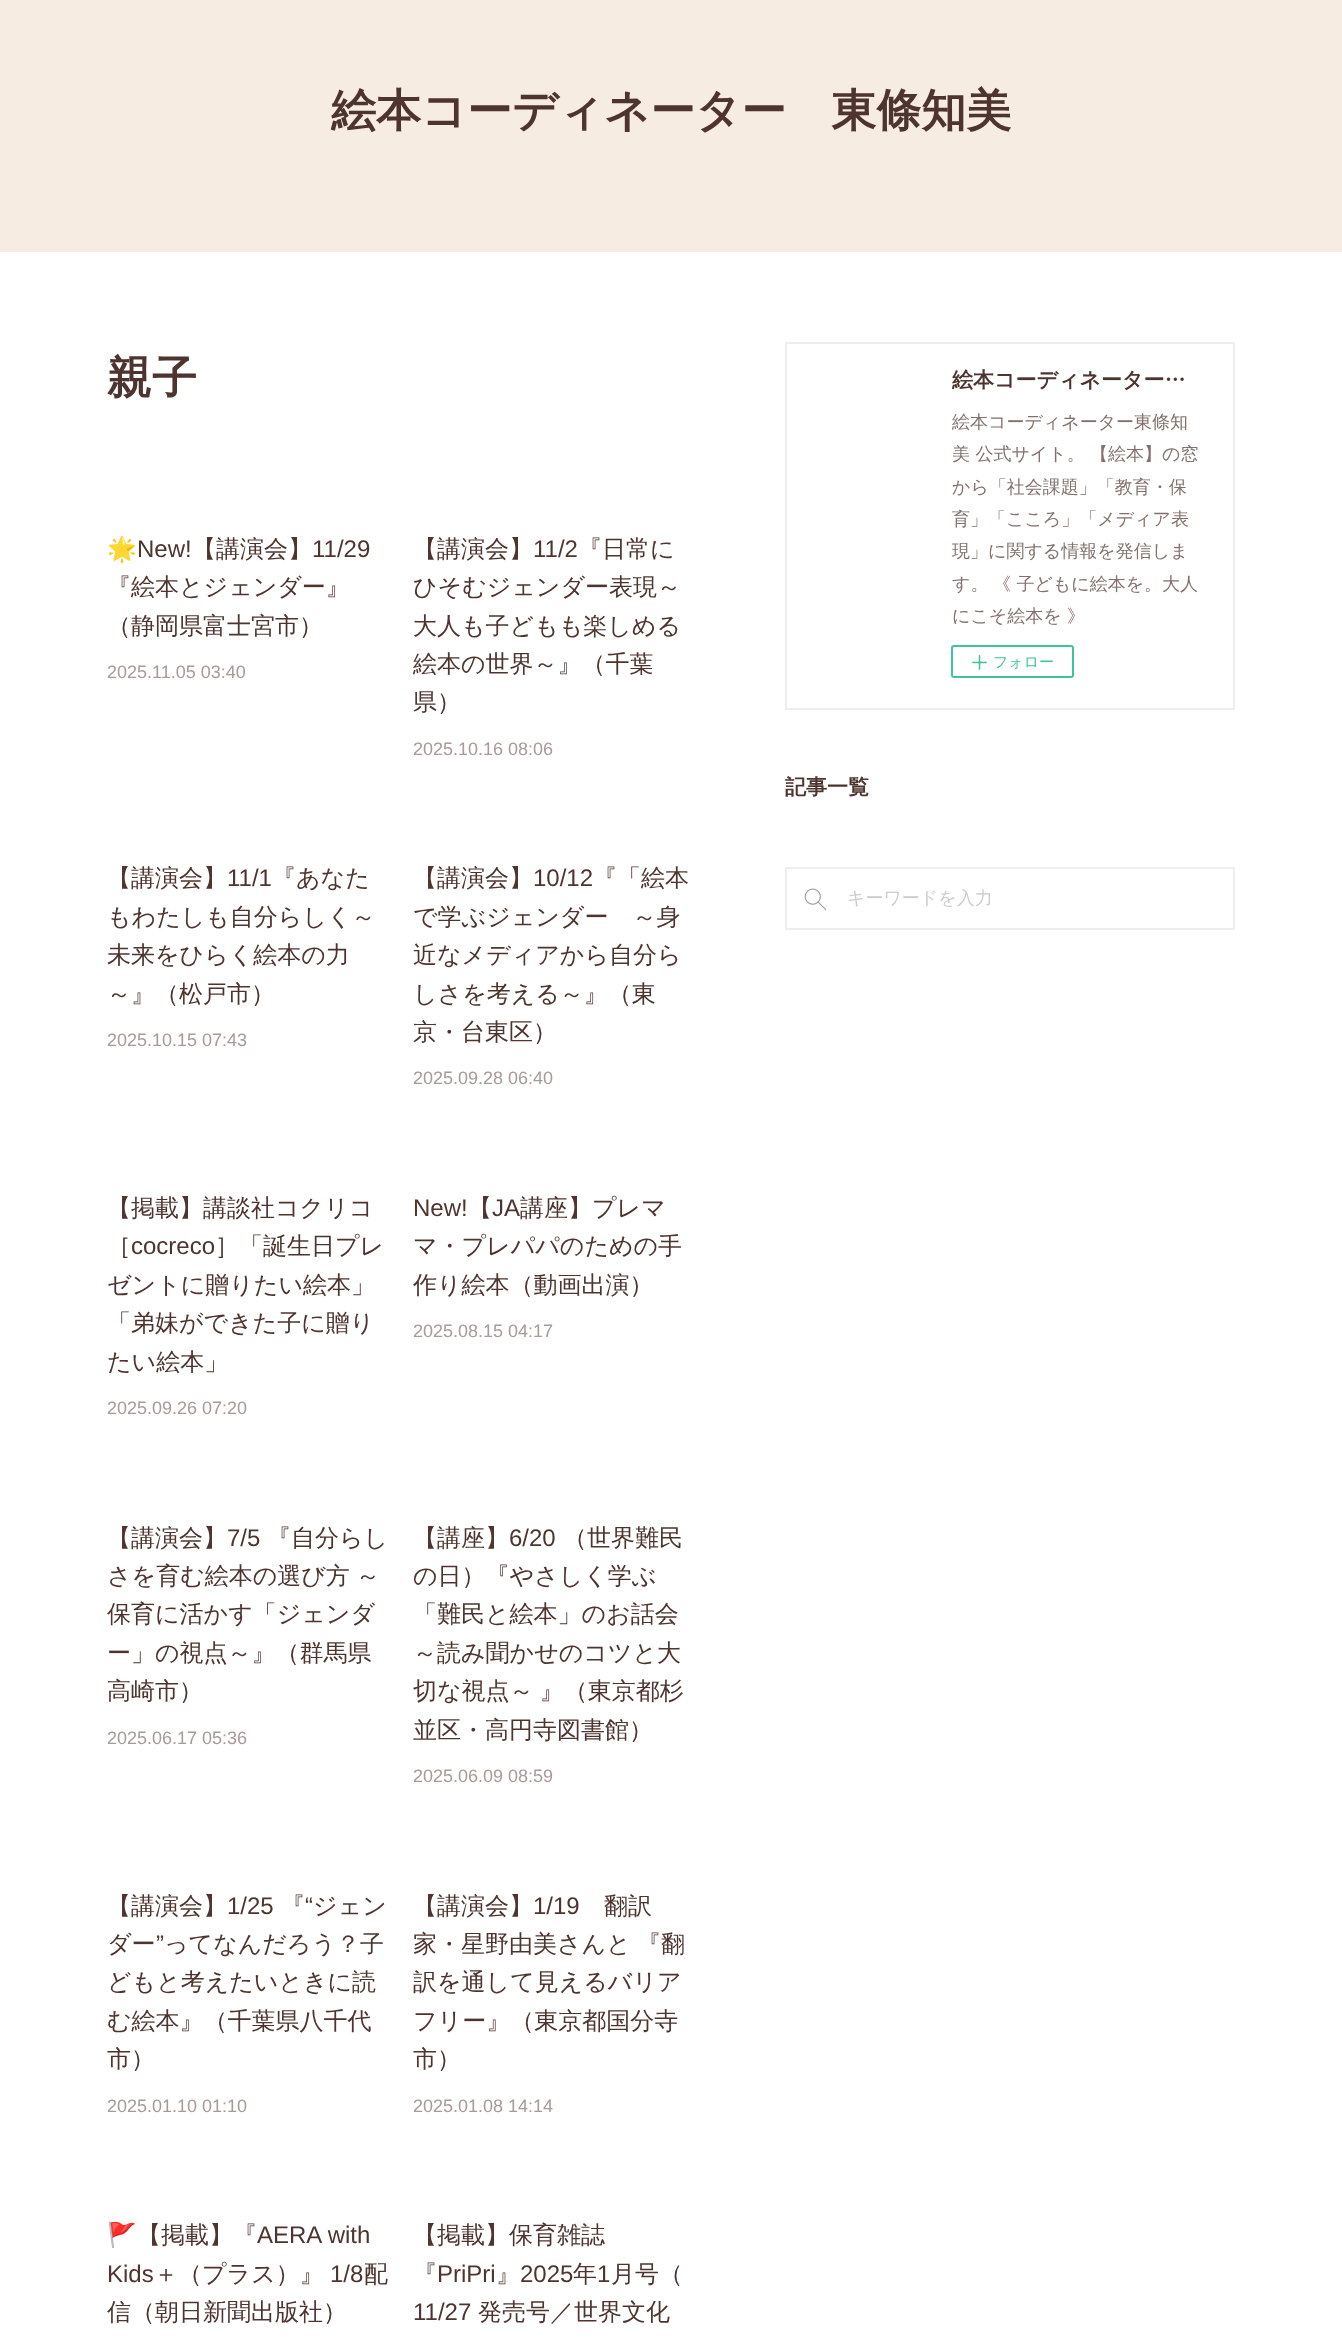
<svg xmlns="http://www.w3.org/2000/svg" width="1342" height="2347">
<style>
.a{font:bold 45px WenQuanYi Zen Hei;fill:#4e342e}
.b{font:24px Noto Color Emoji;fill:#4e342e}
.c{font:24px Liberation Sans;fill:#4e342e}
.d{font:500 24px WenQuanYi Zen Hei;fill:#4e342e}
.e{font:18px Liberation Sans;fill:#a79a97}
.f{font:bold 21px WenQuanYi Zen Hei;fill:#4e342e}
.g{font:500 18px WenQuanYi Zen Hei;fill:#83716d}
.h{font:500 15px WenQuanYi Zen Hei;fill:#3dc49d}
.i{font:500 18px WenQuanYi Zen Hei;fill:#ccc}
</style>
<rect width="100%" height="100%" fill="#fff"/>
<path fill="#f7ece2" d="M0 0h1342v252H0z"/>
<path fill="none" stroke="#eee" stroke-width="2" d="M786 343h448v366H786z"/>
<rect fill="none" stroke="#3dc49d" stroke-width="2" x="952" y="646" width="121" height="31" rx="2"/>
<image href="1.png" x="972" y="655" width="15" height="15"/>
<path fill="none" stroke="#eee" stroke-width="2" d="M786 868h448v61H786z"/>
<image href="2.png" x="804" y="888" width="23" height="22"/>
<text class="a" x="331" y="126">絵本コーディネーター　東條知美</text>
<text class="a" x="107" y="393">親子</text>
<text class="b" x="107" y="557">🌟</text>
<text class="c" x="137" y="557">New!</text>
<text class="d" x="192" y="557">【講演会】</text>
<text class="c" x="312" y="557">11/29</text>
<text class="d" x="107" y="595">『絵本とジェンダー』</text>
<text class="d" x="107" y="634">（静岡県富士宮市）</text>
<text class="e" x="107" y="678">2025.11.05 03:40</text>
<text class="d" x="413" y="557">【講演会】</text>
<text class="c" x="533" y="557">11/2</text>
<text class="d" x="578" y="557">『日常に</text>
<text class="d" x="413" y="595">ひそむジェンダー表現～</text>
<text class="d" x="413" y="634">大人も子どもも楽しめる</text>
<text class="d" x="413" y="672">絵本の世界～』（千葉</text>
<text class="d" x="413" y="710">県）</text>
<text class="e" x="413" y="755">2025.10.16 08:06</text>
<text class="d" x="107" y="886">【講演会】</text>
<text class="c" x="227" y="886">11/1</text>
<text class="d" x="272" y="886">『あなた</text>
<text class="d" x="107" y="925">もわたしも自分らしく～</text>
<text class="d" x="107" y="963">未来をひらく絵本の力</text>
<text class="d" x="107" y="1002">～』（松戸市）</text>
<text class="e" x="107" y="1046">2025.10.15 07:43</text>
<text class="d" x="413" y="886">【講演会】</text>
<text class="c" x="533" y="886">10/12</text>
<text class="d" x="593" y="886">『「絵本</text>
<text class="d" x="413" y="925">で学ぶジェンダー　～身</text>
<text class="d" x="413" y="963">近なメディアから自分ら</text>
<text class="d" x="413" y="1002">しさを考える～』（東</text>
<text class="d" x="413" y="1040">京・台東区）</text>
<text class="e" x="413" y="1084">2025.09.28 06:40</text>
<text class="d" x="107" y="1216">【掲載】講談社コクリコ</text>
<text class="d" x="107" y="1254">［</text>
<text class="c" x="131" y="1254">cocreco</text>
<text class="d" x="215" y="1254">］「誕生日プレ</text>
<text class="d" x="107" y="1293">ゼントに贈りたい絵本」</text>
<text class="d" x="107" y="1331">「弟妹ができた子に贈り</text>
<text class="d" x="107" y="1370">たい絵本」</text>
<text class="e" x="107" y="1414">2025.09.26 07:20</text>
<text class="c" x="413" y="1216">New!</text>
<text class="d" x="468" y="1216">【</text>
<text class="c" x="492" y="1216">JA</text>
<text class="d" x="520" y="1216">講座】プレマ</text>
<text class="d" x="413" y="1254">マ・プレパパのための手</text>
<text class="d" x="413" y="1293">作り絵本（動画出演）</text>
<text class="e" x="413" y="1337">2025.08.15 04:17</text>
<text class="d" x="107" y="1546">【講演会】</text>
<text class="c" x="227" y="1546">7/5</text>
<text class="d" x="267" y="1546">『自分らし</text>
<text class="d" x="107" y="1584" word-spacing="-1">さを育む絵本の選び方 ～</text>
<text class="d" x="107" y="1622">保育に活かす「ジェンダ</text>
<text class="d" x="107" y="1661">ー」の視点～』（群馬県</text>
<text class="d" x="107" y="1699">高崎市）</text>
<text class="e" x="107" y="1744">2025.06.17 05:36</text>
<text class="d" x="413" y="1546">【講座】</text>
<text class="c" x="509" y="1546">6/20</text>
<text class="d" x="563" y="1546">（世界難民</text>
<text class="d" x="413" y="1584">の日）『やさしく学ぶ</text>
<text class="d" x="413" y="1622">「難民と絵本」のお話会</text>
<text class="d" x="413" y="1661">～読み聞かせのコツと大</text>
<text class="d" x="413" y="1699" word-spacing="-1">切な視点～ 』（東京都杉</text>
<text class="d" x="413" y="1738">並区・高円寺図書館）</text>
<text class="e" x="413" y="1782">2025.06.09 08:59</text>
<text class="d" x="107" y="1914">【講演会】</text>
<text class="c" x="227" y="1914">1/25</text>
<text class="d" x="281" y="1914">『</text>
<text class="c" x="305" y="1914">“</text>
<text class="d" x="313" y="1914">ジェン</text>
<text class="d" x="107" y="1952">ダー</text>
<text class="c" x="156" y="1952">”</text>
<text class="d" x="164" y="1952">ってなんだろう？子</text>
<text class="d" x="107" y="1990">どもと考えたいときに読</text>
<text class="d" x="107" y="2029">む絵本』（千葉県八千代</text>
<text class="d" x="107" y="2067">市）</text>
<text class="e" x="107" y="2112">2025.01.10 01:10</text>
<text class="d" x="413" y="1914">【講演会】</text>
<text class="c" x="533" y="1914">1/19</text>
<text class="d" x="604" y="1914">翻訳</text>
<text class="d" x="413" y="1952" word-spacing="-1">家・星野由美さんと 『翻</text>
<text class="d" x="413" y="1990">訳を通して見えるバリア</text>
<text class="d" x="413" y="2029">フリー』（東京都国分寺</text>
<text class="d" x="413" y="2067">市）</text>
<text class="e" x="413" y="2112">2025.01.08 14:14</text>
<text class="b" x="107" y="2243">🚩</text>
<text class="d" x="137" y="2243">【掲載】『</text>
<text class="c" x="257" y="2243">AERA with</text>
<text class="c" x="107" y="2282">Kids</text>
<text class="d" x="154" y="2282">＋（プラス）』</text>
<text class="c" x="330" y="2282">1/8</text>
<text class="d" x="364" y="2282">配</text>
<text class="d" x="107" y="2320">信（朝日新聞出版社）</text>
<text class="d" x="413" y="2243">【掲載】保育雑誌</text>
<text class="d" x="413" y="2282">『</text>
<text class="c" x="437" y="2282">PriPri</text>
<text class="d" x="496" y="2282">』</text>
<text class="c" x="520" y="2282">2025</text>
<text class="d" x="573" y="2282">年</text>
<text class="c" x="597" y="2282">1</text>
<text class="d" x="611" y="2282">月号（</text>
<text class="c" x="413" y="2320">11/27</text>
<text class="d" x="478" y="2320">発売号／世界文化</text>
<text class="f" x="952" y="387">絵本コーディネーター…</text>
<text class="g" x="952" y="428">絵本コーディネーター東條知</text>
<text class="g" x="952" y="460">美 公式サイト。 【絵本】の窓</text>
<text class="g" x="952" y="493">から「社会課題」「教育・保</text>
<text class="g" x="952" y="525">育」「こころ」「メディア表</text>
<text class="g" x="952" y="557">現」に関する情報を発信しま</text>
<text class="g" x="952" y="590">す。</text>
<text class="g" x="993" y="590">《 子どもに絵本を。大人</text>
<text class="g" x="952" y="622">にこそ絵本を 》</text>
<text class="h" x="993" y="667">フォロー</text>
<text class="f" x="785" y="794">記事一覧</text>
<text class="i" x="847" y="904">キーワードを入力</text>
</svg>
